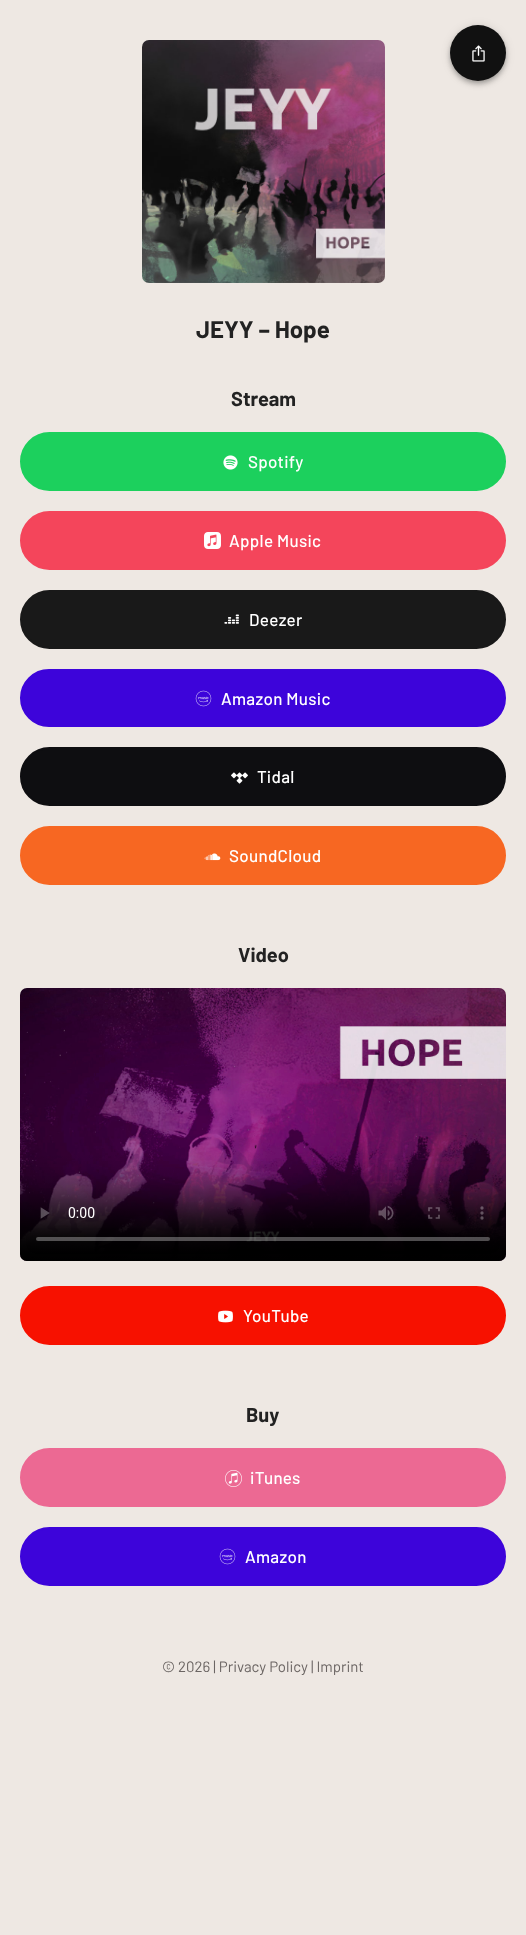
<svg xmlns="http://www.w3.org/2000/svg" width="526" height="1935">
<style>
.a{font:bold 24px Barlow;fill:#222}
.b{font:bold 20px Barlow;fill:#222}
.c{font:500 17px Barlow;letter-spacing:0.3px;fill:#fff}
.d{font:15px Barlow;fill:#6b6563}
</style>
<rect width="100%" height="100%" fill="#eee8e3"/>
<rect fill="#0000001f" filter="blur(5px)" x="450" y="26" width="56" height="56" rx="28"/>
<rect fill="#00000024" filter="blur(2.5px)" x="450" y="29" width="56" height="56" rx="28"/>
<rect fill="#00000033" filter="blur(2px)" x="451" y="28" width="54" height="54" rx="27"/>
<circle fill="#111" cx="478" cy="53" r="28"/>
<image href="1.png" x="472" y="45" width="13" height="17"/>
<image href="2.png" x="142" y="40" width="243" height="243"/>
<rect fill="#1cd05d" stroke="#1cd05d" stroke-width="2" x="21" y="433" width="484" height="57" rx="28.5"/>
<image href="3.png" x="223" y="455" width="15" height="15"/>
<rect fill="#f4455b" stroke="#f4455b" stroke-width="2" x="21" y="512" width="484" height="57" rx="28.5"/>
<image href="4.png" x="204" y="532" width="17" height="17"/>
<rect fill="#191919" stroke="#191919" stroke-width="2" x="21" y="591" width="484" height="57" rx="28.5"/>
<image href="5.png" x="224" y="614" width="15" height="10"/>
<rect fill="#3d04da" stroke="#3d04da" stroke-width="2" x="21" y="670" width="484" height="56" rx="28"/>
<image href="6.png" x="195" y="690" width="17" height="17"/>
<rect fill="#0e0e11" stroke="#0e0e11" stroke-width="2" x="21" y="748" width="484" height="57" rx="28.5"/>
<image href="7.png" x="231" y="772" width="17" height="12"/>
<rect fill="#f76722" stroke="#f76722" stroke-width="2" x="21" y="827" width="484" height="57" rx="28.5"/>
<image href="8.png" x="204" y="853" width="17" height="8"/>
<image href="9.png" x="20" y="988" width="486" height="273"/>
<rect fill="#f71100" stroke="#f71100" stroke-width="2" x="21" y="1287" width="484" height="57" rx="28.5"/>
<image href="10.png" x="218" y="1310" width="15" height="13"/>
<rect fill="#ec6993" stroke="#ec6993" stroke-width="2" x="21" y="1449" width="484" height="57" rx="28.5"/>
<image href="11.png" x="225" y="1470" width="17" height="17"/>
<rect fill="#3d04da" stroke="#3d04da" stroke-width="2" x="21" y="1528" width="484" height="57" rx="28.5"/>
<image href="6.png" x="219" y="1548" width="17" height="17"/>
<text class="a" x="196" y="338">JEYY – Hope</text>
<text class="b" x="231" y="406">Stream</text>
<text class="c" x="248" y="468">Spotify</text>
<text class="c" x="229" y="547">Apple Music</text>
<text class="c" x="249" y="626">Deezer</text>
<text class="c" x="221" y="705">Amazon Music</text>
<text class="c" x="257" y="783">Tidal</text>
<text class="c" x="229" y="862">SoundCloud</text>
<text class="b" x="238" y="962">Video</text>
<text class="c" x="243" y="1322">YouTube</text>
<text class="b" x="246" y="1422">Buy</text>
<text class="c" x="250" y="1484">iTunes</text>
<text class="c" x="245" y="1563">Amazon</text>
<text class="d" x="162" y="1672">© 2026 | Privacy Policy | Imprint</text>
</svg>
